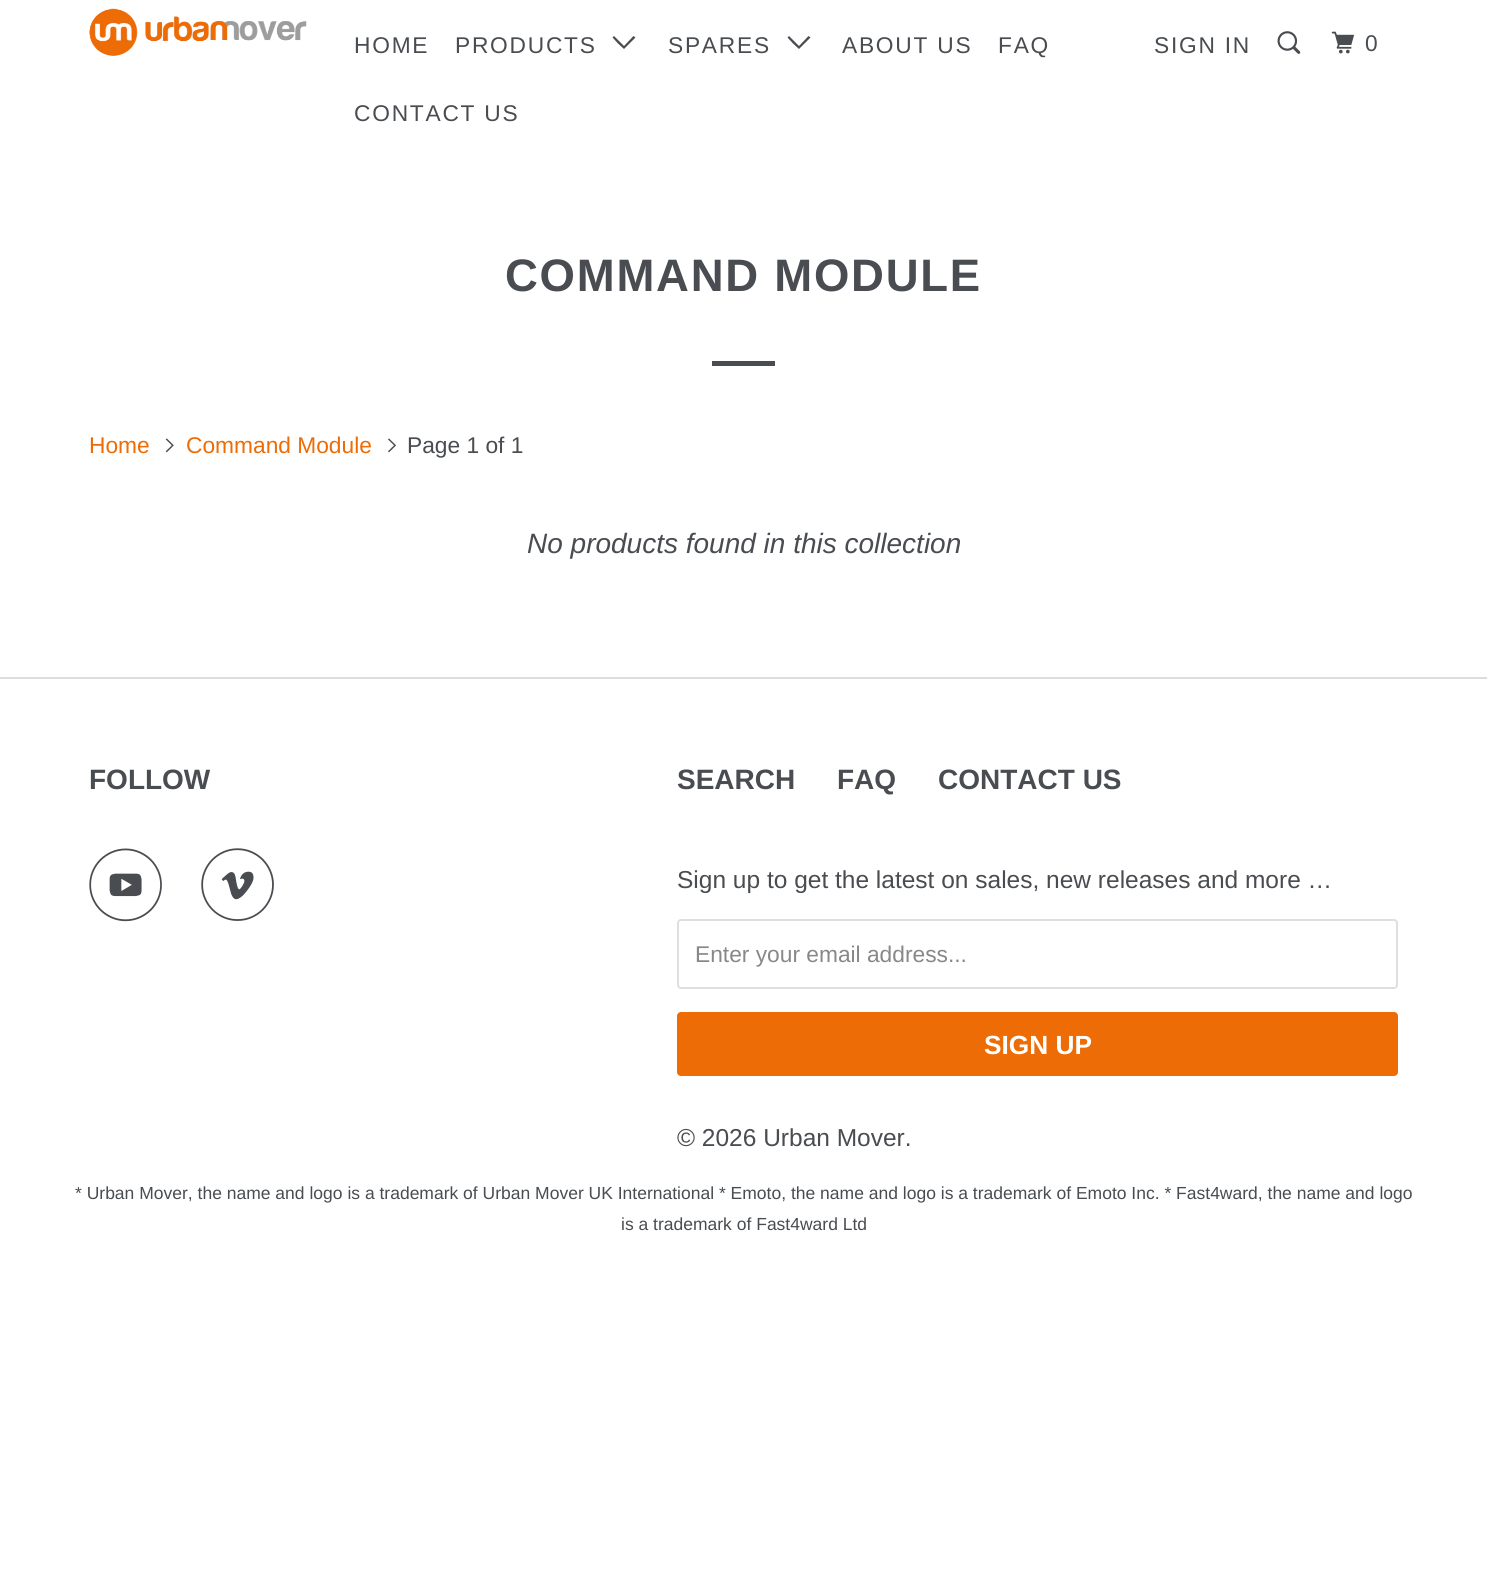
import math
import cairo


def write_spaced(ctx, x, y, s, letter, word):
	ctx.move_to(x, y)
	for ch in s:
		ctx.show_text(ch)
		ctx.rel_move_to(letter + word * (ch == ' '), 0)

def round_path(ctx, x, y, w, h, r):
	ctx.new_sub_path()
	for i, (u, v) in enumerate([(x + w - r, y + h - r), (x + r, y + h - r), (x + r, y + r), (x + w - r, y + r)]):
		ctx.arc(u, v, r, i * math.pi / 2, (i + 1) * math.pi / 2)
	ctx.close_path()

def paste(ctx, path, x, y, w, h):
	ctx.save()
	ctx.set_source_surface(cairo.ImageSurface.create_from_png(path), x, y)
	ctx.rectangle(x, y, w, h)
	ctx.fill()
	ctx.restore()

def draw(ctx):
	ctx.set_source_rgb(1, 1, 1)
	ctx.paint()
	paste(ctx, 'media/1.png', 89, 8, 218, 48)
	ctx.select_font_face('Liberation Sans')
	ctx.set_font_size(22.75)
	ctx.set_source_rgb(0.286, 0.298, 0.314)
	write_spaced(ctx, 354, 53, 'HOME', 1.75, 0)
	write_spaced(ctx, 455, 53, 'PRODUCTS', 1.75, 0)
	ctx.new_path()
	ctx.move_to(618, 43.5)
	ctx.line_to(612.5, 37.5)
	ctx.line_to(614, 36)
	ctx.line_to(624, 46)
	ctx.line_to(633.5, 36)
	ctx.line_to(635.5, 37.5)
	ctx.line_to(624, 49)
	ctx.close_path()
	ctx.fill()
	write_spaced(ctx, 668, 53, 'SPARES', 1.75, 0)
	ctx.new_path()
	ctx.move_to(793, 43.5)
	ctx.line_to(787.5, 37.5)
	ctx.line_to(789, 36)
	ctx.line_to(799, 46)
	ctx.line_to(808.5, 36)
	ctx.line_to(810.5, 37.5)
	ctx.line_to(799, 49)
	ctx.close_path()
	ctx.fill()
	for x, y, s in [
		(842, 53, 'ABOUT US'),
		(998, 53, 'FAQ'),
		(354, 121, 'CONTACT US'),
		(1154, 53, 'SIGN IN'),
	]:
		write_spaced(ctx, x, y, s, 1.75, 0)
	paste(ctx, 'media/2.png', 1277, 31, 24, 23)
	paste(ctx, 'media/3.png', 1331, 31, 23, 23)
	write_spaced(ctx, 1365, 51, '0', 1.75, 0)
	ctx.select_font_face('Liberation Sans', cairo.FONT_SLANT_NORMAL, cairo.FONT_WEIGHT_BOLD)
	ctx.set_font_size(45.5)
	write_spaced(ctx, 505, 291, 'COMMAND MODULE', 1.75, 0)
	ctx.rectangle(712, 361, 63, 5)
	ctx.fill()
	ctx.select_font_face('Liberation Sans')
	ctx.set_font_size(22.75)
	ctx.set_source_rgb(0.929, 0.424, 0.02)
	ctx.move_to(89, 453)
	ctx.show_text('Home')
	paste(ctx, 'media/4.png', 165, 438, 9, 15)
	ctx.move_to(186, 453)
	ctx.show_text('Command Module')
	paste(ctx, 'media/5.png', 388, 438, 8, 15)
	ctx.set_source_rgb(0.286, 0.298, 0.314)
	ctx.move_to(407, 453)
	ctx.show_text('Page 1 of 1')
	ctx.select_font_face('Liberation Sans', cairo.FONT_SLANT_ITALIC)
	ctx.set_font_size(28)
	ctx.move_to(527, 553)
	ctx.show_text('No products found in this collection')
	ctx.set_source_rgb(0.867, 0.867, 0.867)
	ctx.rectangle(0, 677, 1487, 2)
	ctx.fill()
	ctx.select_font_face('Liberation Sans', cairo.FONT_SLANT_NORMAL, cairo.FONT_WEIGHT_BOLD)
	ctx.set_source_rgb(0.286, 0.298, 0.314)
	ctx.move_to(89, 789)
	ctx.show_text('FOLLOW')
	paste(ctx, 'media/6.png', 89, 848, 73, 74)
	paste(ctx, 'media/7.png', 201, 848, 73, 73)
	for x, y, s in [
		(677, 789, 'SEARCH'),
		(837, 789, 'FAQ'),
		(938, 789, 'CONTACT US'),
	]:
		ctx.move_to(x, y)
		ctx.show_text(s)
	ctx.select_font_face('Liberation Sans')
	ctx.set_font_size(24.5)
	ctx.move_to(677, 888)
	ctx.show_text('Sign up to get the latest on sales, new releases and more …')
	round_path(ctx, 678, 920, 719, 68, 3)
	ctx.set_source_rgb(0.875, 0.875, 0.875)
	ctx.stroke()
	ctx.set_font_size(22.75)
	ctx.set_source_rgb(0.533, 0.533, 0.533)
	ctx.move_to(695, 962)
	ctx.show_text('Enter your email address...')
	ctx.set_source_rgb(0.929, 0.424, 0.02)
	round_path(ctx, 677, 1012, 721, 64, 4)
	ctx.fill()
	ctx.select_font_face('Liberation Sans', cairo.FONT_SLANT_NORMAL, cairo.FONT_WEIGHT_BOLD)
	ctx.set_font_size(26.25)
	ctx.set_source_rgb(1, 1, 1)
	ctx.move_to(984, 1054)
	ctx.show_text('SIGN UP')
	ctx.select_font_face('Liberation Sans')
	ctx.set_font_size(24.5)
	ctx.set_source_rgb(0.286, 0.298, 0.314)
	ctx.move_to(677, 1146)
	ctx.show_text('© 2026 Urban Mover.')
	ctx.set_font_size(17.5)
	ctx.move_to(75, 1199)
	ctx.show_text('* Urban Mover, the name and logo is a trademark of Urban Mover UK International * Emoto, the name and logo is a trademark of Emoto Inc. * Fast4ward, the name and logo')
	ctx.move_to(621, 1230)
	ctx.show_text('is a trademark of Fast4ward Ltd')


surface = cairo.ImageSurface(cairo.FORMAT_RGB24, 1487, 1594)
ctx = cairo.Context(surface)
options = cairo.FontOptions()
options.set_hint_metrics(cairo.HINT_METRICS_OFF)
options.set_hint_style(cairo.HINT_STYLE_NONE)
ctx.set_font_options(options)
ctx.set_miter_limit(4)
draw(ctx)
surface.write_to_png('image.png')
